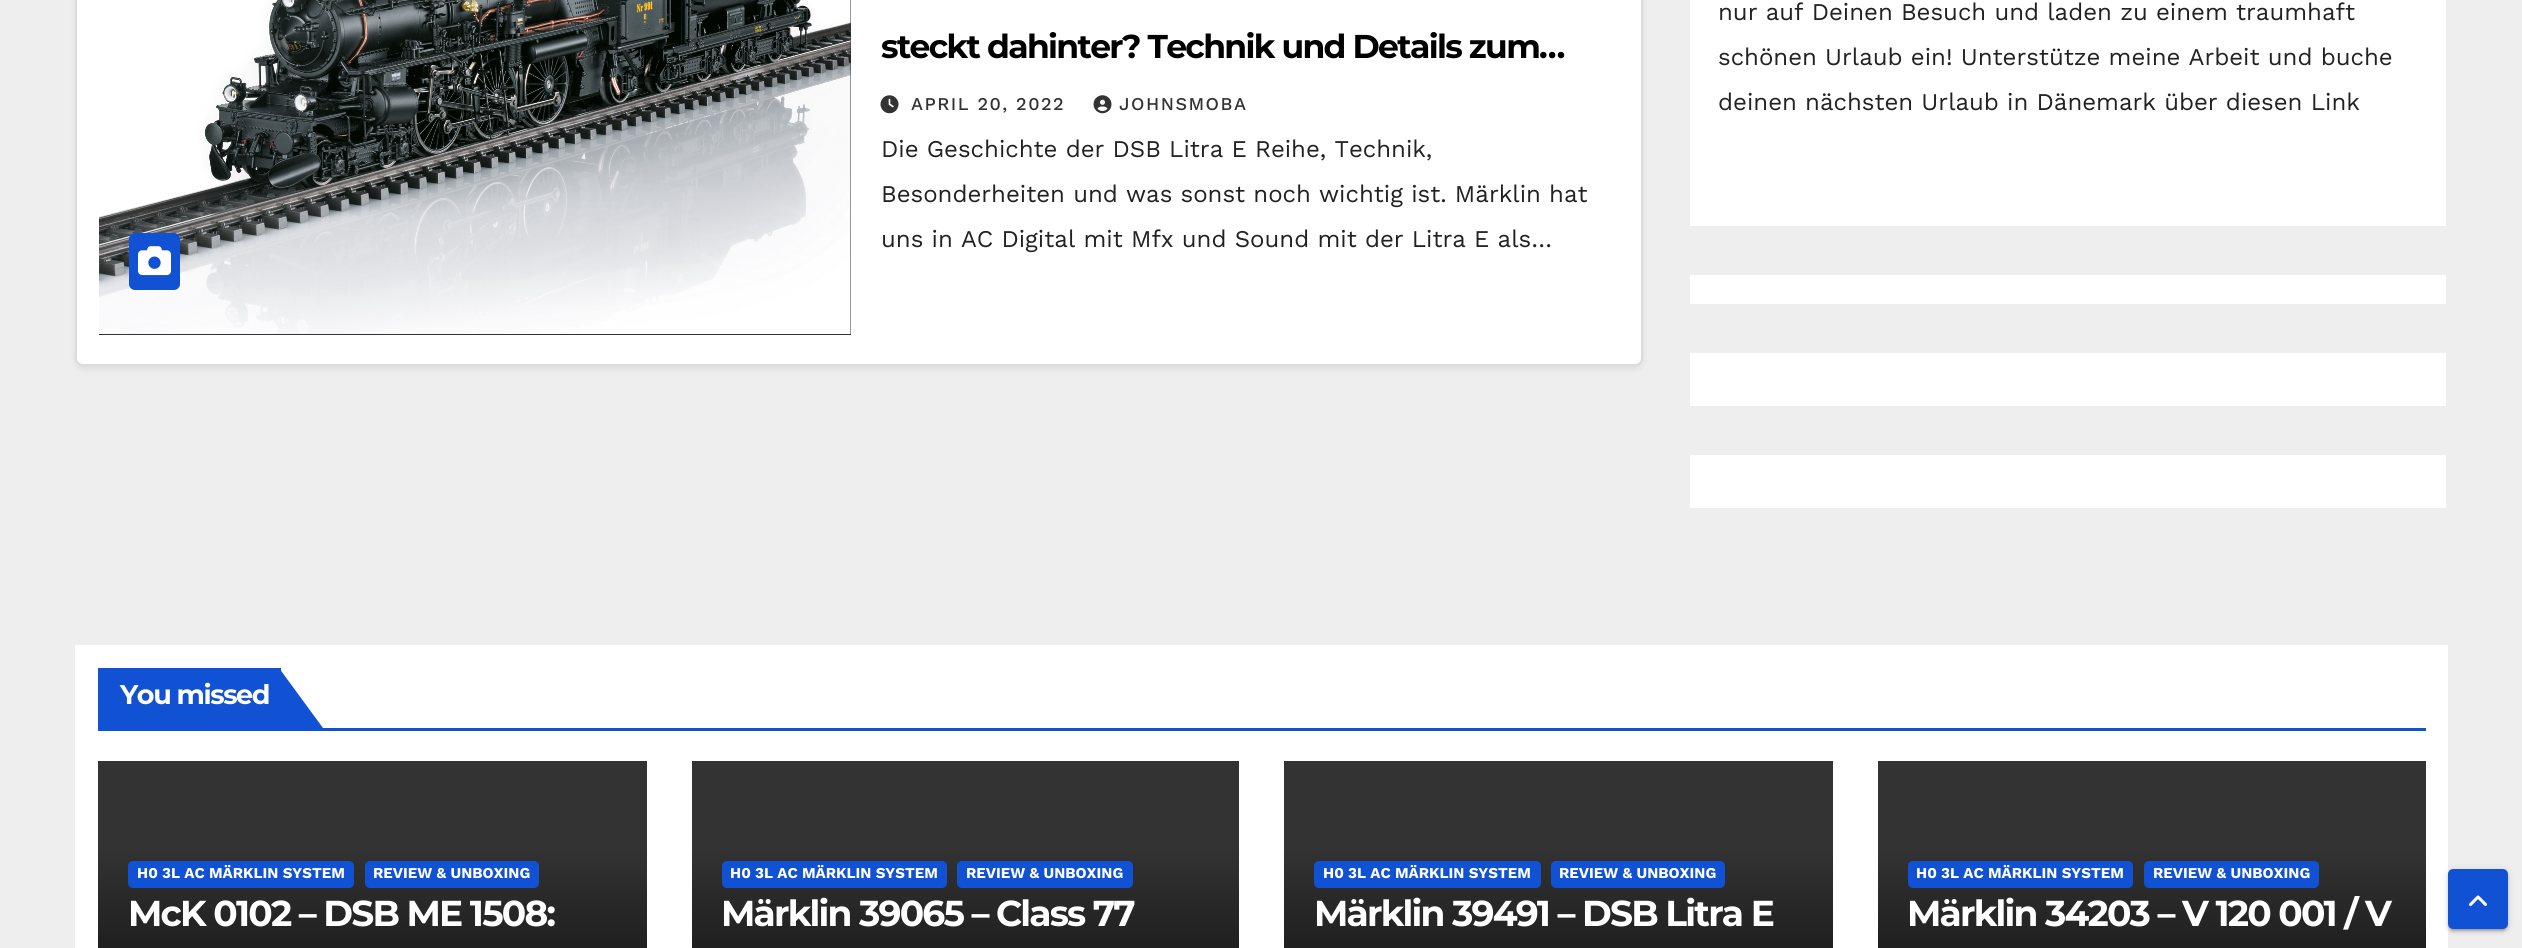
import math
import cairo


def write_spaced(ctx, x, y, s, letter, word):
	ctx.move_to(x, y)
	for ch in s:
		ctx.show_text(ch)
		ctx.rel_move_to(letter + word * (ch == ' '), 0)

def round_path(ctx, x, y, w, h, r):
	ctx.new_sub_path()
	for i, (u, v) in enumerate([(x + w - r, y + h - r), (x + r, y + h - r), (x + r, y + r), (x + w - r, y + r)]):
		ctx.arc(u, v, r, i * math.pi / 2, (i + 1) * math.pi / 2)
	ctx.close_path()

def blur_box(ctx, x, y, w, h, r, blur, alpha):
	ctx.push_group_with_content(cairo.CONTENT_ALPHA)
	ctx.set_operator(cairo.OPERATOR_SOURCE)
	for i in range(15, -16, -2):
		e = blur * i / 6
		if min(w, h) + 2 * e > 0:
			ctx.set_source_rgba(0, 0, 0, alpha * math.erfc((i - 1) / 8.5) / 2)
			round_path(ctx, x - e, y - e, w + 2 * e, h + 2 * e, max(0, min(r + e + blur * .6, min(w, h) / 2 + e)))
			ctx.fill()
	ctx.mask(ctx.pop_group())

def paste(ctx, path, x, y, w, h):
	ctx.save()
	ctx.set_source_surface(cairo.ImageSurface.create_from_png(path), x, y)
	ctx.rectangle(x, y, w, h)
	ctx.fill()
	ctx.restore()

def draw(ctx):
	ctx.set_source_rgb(0.933, 0.933, 0.933)
	ctx.paint()
	ctx.set_source_rgb(0, 0, 0)
	blur_box(ctx, 75, -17, 1568, 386, 8, 3, 0.08)
	ctx.set_source_rgb(1, 1, 1)
	round_path(ctx, 76, -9, 1566, 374, 7)
	ctx.fill_preserve()
	ctx.set_source_rgb(0.867, 0.863, 0.863)
	ctx.stroke()
	ctx.set_source_rgb(0.2, 0.2, 0.2)
	ctx.rectangle(99, 0, 752, 335)
	ctx.fill()
	paste(ctx, 'media/1.png', 99, 0, 752, 334)
	ctx.set_source_rgb(0.067, 0.318, 0.827)
	round_path(ctx, 129, 233, 51, 57, 6)
	ctx.fill()
	paste(ctx, 'media/2.png', 138, 246, 33, 30)
	ctx.select_font_face('Montserrat', cairo.FONT_SLANT_NORMAL, cairo.FONT_WEIGHT_BOLD)
	ctx.set_font_size(33)
	ctx.set_source_rgb(0, 0, 0)
	write_spaced(ctx, 881, 58, 'steckt dahinter? Technik und Details zum…', -1.65, 0)
	paste(ctx, 'media/3.png', 880, 95, 19, 19)
	ctx.select_font_face('Work Sans Medium')
	ctx.set_font_size(18)
	ctx.set_source_rgb(0.2, 0.2, 0.2)
	write_spaced(ctx, 911, 110, 'APRIL 20, 2022', 1.5, 0)
	paste(ctx, 'media/4.png', 1093, 95, 19, 19)
	write_spaced(ctx, 1119, 110, 'JOHNSMOBA', 1.5, 0)
	ctx.select_font_face('Work Sans')
	ctx.set_font_size(24)
	ctx.set_source_rgb(0.133, 0.133, 0.133)
	for x, y, s in [
		(881, 157, 'Die Geschichte der DSB Litra E Reihe, Technik,'),
		(881, 202, 'Besonderheiten und was sonst noch wichtig ist. Märklin hat'),
		(881, 247, 'uns in AC Digital mit Mfx und Sound mit der Litra E als…'),
	]:
		ctx.move_to(x, y)
		ctx.show_text(s)
	ctx.set_source_rgb(1, 1, 1)
	ctx.rectangle(1690, 0, 756, 226)
	ctx.fill()
	ctx.set_source_rgb(0.133, 0.133, 0.133)
	for x, y, s in [
		(1718, 20, 'nur auf Deinen Besuch und laden zu einem traumhaft'),
		(1718, 65, 'schönen Urlaub ein! Unterstütze meine Arbeit und buche'),
		(1718, 110, 'deinen nächsten Urlaub in Dänemark über diesen Link'),
	]:
		ctx.move_to(x, y)
		ctx.show_text(s)
	ctx.set_source_rgb(1, 1, 1)
	ctx.rectangle(1690, 275, 756, 29)
	ctx.rectangle(1690, 353, 756, 53)
	ctx.rectangle(1690, 455, 756, 53)
	ctx.rectangle(75, 645, 2373, 303)
	ctx.fill()
	ctx.set_source_rgb(0.067, 0.318, 0.827)
	ctx.rectangle(98, 728, 2328, 3)
	ctx.rectangle(98, 668, 183, 60)
	ctx.fill()
	ctx.select_font_face('Montserrat', cairo.FONT_SLANT_NORMAL, cairo.FONT_WEIGHT_BOLD)
	ctx.set_font_size(27)
	ctx.set_source_rgb(1, 1, 1)
	write_spaced(ctx, 120, 704, 'You missed', -1.4, 0)
	ctx.set_source_rgb(0.067, 0.318, 0.827)
	ctx.new_path()
	ctx.move_to(279, 668)
	ctx.line_to(279, 728)
	ctx.line_to(323, 728)
	ctx.close_path()
	ctx.fill()
	ctx.set_source_rgb(0.2, 0.2, 0.2)
	ctx.rectangle(98, 761, 549, 85)
	ctx.fill()
	gradient = cairo.LinearGradient(372, 846, 372, 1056)
	gradient.add_color_stop_rgba(0, 0.2, 0.2, 0.2, 1)
	gradient.add_color_stop_rgba(0.5, 0.122, 0.122, 0.122, 1)
	gradient.add_color_stop_rgba(1, 0.059, 0.059, 0.059, 1)
	ctx.set_source(gradient)
	ctx.rectangle(98, 846, 549, 102)
	ctx.fill()
	ctx.set_source_rgb(0.067, 0.318, 0.827)
	round_path(ctx, 128, 861, 226, 27, 5)
	ctx.fill()
	ctx.select_font_face('Work Sans', cairo.FONT_SLANT_NORMAL, cairo.FONT_WEIGHT_BOLD)
	ctx.set_font_size(15)
	ctx.set_source_rgb(1, 1, 1)
	ctx.move_to(137, 878)
	ctx.show_text('H0 3L AC MÄRKLIN SYSTEM')
	ctx.set_source_rgb(0.067, 0.318, 0.827)
	round_path(ctx, 365, 861, 174, 27, 5)
	ctx.fill()
	ctx.set_source_rgb(1, 1, 1)
	ctx.move_to(373, 878)
	ctx.show_text('REVIEW & UNBOXING')
	ctx.select_font_face('Montserrat', cairo.FONT_SLANT_NORMAL, cairo.FONT_WEIGHT_BOLD)
	ctx.set_font_size(36)
	write_spaced(ctx, 128, 926, 'McK 0102 – DSB ME 1508:', -1.8, 0)
	ctx.set_source_rgb(0.2, 0.2, 0.2)
	ctx.rectangle(692, 761, 547, 85)
	ctx.fill()
	gradient = cairo.LinearGradient(965, 846, 965, 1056)
	gradient.add_color_stop_rgba(0, 0.2, 0.2, 0.2, 1)
	gradient.add_color_stop_rgba(0.5, 0.122, 0.122, 0.122, 1)
	gradient.add_color_stop_rgba(1, 0.059, 0.059, 0.059, 1)
	ctx.set_source(gradient)
	ctx.rectangle(692, 846, 547, 102)
	ctx.fill()
	ctx.set_source_rgb(0.067, 0.318, 0.827)
	round_path(ctx, 722, 861, 225, 27, 5)
	ctx.fill()
	ctx.select_font_face('Work Sans', cairo.FONT_SLANT_NORMAL, cairo.FONT_WEIGHT_BOLD)
	ctx.set_font_size(15)
	ctx.set_source_rgb(1, 1, 1)
	ctx.move_to(730, 878)
	ctx.show_text('H0 3L AC MÄRKLIN SYSTEM')
	ctx.set_source_rgb(0.067, 0.318, 0.827)
	round_path(ctx, 957, 861, 176, 27, 5)
	ctx.fill()
	ctx.set_source_rgb(1, 1, 1)
	ctx.move_to(966, 878)
	ctx.show_text('REVIEW & UNBOXING')
	ctx.select_font_face('Montserrat', cairo.FONT_SLANT_NORMAL, cairo.FONT_WEIGHT_BOLD)
	ctx.set_font_size(36)
	write_spaced(ctx, 721, 926, 'Märklin 39065 – Class 77', -1.8, 0)
	ctx.set_source_rgb(0.2, 0.2, 0.2)
	ctx.rectangle(1284, 761, 549, 85)
	ctx.fill()
	gradient = cairo.LinearGradient(1559, 846, 1559, 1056)
	gradient.add_color_stop_rgba(0, 0.2, 0.2, 0.2, 1)
	gradient.add_color_stop_rgba(0.5, 0.122, 0.122, 0.122, 1)
	gradient.add_color_stop_rgba(1, 0.059, 0.059, 0.059, 1)
	ctx.set_source(gradient)
	ctx.rectangle(1284, 846, 549, 102)
	ctx.fill()
	ctx.set_source_rgb(0.067, 0.318, 0.827)
	round_path(ctx, 1314, 861, 227, 27, 5)
	ctx.fill()
	ctx.select_font_face('Work Sans', cairo.FONT_SLANT_NORMAL, cairo.FONT_WEIGHT_BOLD)
	ctx.set_font_size(15)
	ctx.set_source_rgb(1, 1, 1)
	ctx.move_to(1323, 878)
	ctx.show_text('H0 3L AC MÄRKLIN SYSTEM')
	ctx.set_source_rgb(0.067, 0.318, 0.827)
	round_path(ctx, 1551, 861, 174, 27, 5)
	ctx.fill()
	ctx.set_source_rgb(1, 1, 1)
	ctx.move_to(1559, 878)
	ctx.show_text('REVIEW & UNBOXING')
	ctx.select_font_face('Montserrat', cairo.FONT_SLANT_NORMAL, cairo.FONT_WEIGHT_BOLD)
	ctx.set_font_size(36)
	write_spaced(ctx, 1314, 926, 'Märklin 39491 – DSB Litra E', -1.8, 0)
	ctx.set_source_rgb(0.2, 0.2, 0.2)
	ctx.rectangle(1878, 761, 548, 85)
	ctx.fill()
	gradient = cairo.LinearGradient(2152, 846, 2152, 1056)
	gradient.add_color_stop_rgba(0, 0.2, 0.2, 0.2, 1)
	gradient.add_color_stop_rgba(0.5, 0.122, 0.122, 0.122, 1)
	gradient.add_color_stop_rgba(1, 0.059, 0.059, 0.059, 1)
	ctx.set_source(gradient)
	ctx.rectangle(1878, 846, 548, 102)
	ctx.fill()
	ctx.set_source_rgb(0.067, 0.318, 0.827)
	round_path(ctx, 1908, 861, 225, 27, 5)
	ctx.fill()
	ctx.select_font_face('Work Sans', cairo.FONT_SLANT_NORMAL, cairo.FONT_WEIGHT_BOLD)
	ctx.set_font_size(15)
	ctx.set_source_rgb(1, 1, 1)
	ctx.move_to(1916, 878)
	ctx.show_text('H0 3L AC MÄRKLIN SYSTEM')
	ctx.set_source_rgb(0.067, 0.318, 0.827)
	round_path(ctx, 2144, 861, 175, 27, 5)
	ctx.fill()
	ctx.set_source_rgb(1, 1, 1)
	ctx.move_to(2153, 878)
	ctx.show_text('REVIEW & UNBOXING')
	ctx.save()
	ctx.rectangle(1908, 896, 488, 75)
	ctx.clip()
	ctx.select_font_face('Montserrat', cairo.FONT_SLANT_NORMAL, cairo.FONT_WEIGHT_BOLD)
	ctx.set_font_size(36)
	write_spaced(ctx, 1907, 926, 'Märklin 34203 – V 120 001 / V', -1.8, 0)
	ctx.restore()
	ctx.set_source_rgb(0, 0, 0)
	blur_box(ctx, 2448, 870, 60, 60, 5, 4, 0.12)
	blur_box(ctx, 2451, 876, 54, 54, 1.5, 1, 0.2)
	blur_box(ctx, 2448, 872, 60, 60, 5, 1.5, 0.14)
	ctx.set_source_rgb(0.067, 0.318, 0.827)
	round_path(ctx, 2449.5, 870.5, 57, 57, 3.5)
	ctx.fill_preserve()
	ctx.set_line_width(3)
	ctx.stroke()
	paste(ctx, 'media/5.png', 2469, 895, 18, 11)


surface = cairo.ImageSurface(cairo.FORMAT_RGB24, 2522, 948)
ctx = cairo.Context(surface)
options = cairo.FontOptions()
options.set_hint_metrics(cairo.HINT_METRICS_OFF)
options.set_hint_style(cairo.HINT_STYLE_NONE)
ctx.set_font_options(options)
ctx.set_miter_limit(4)
draw(ctx)
surface.write_to_png('image.png')
